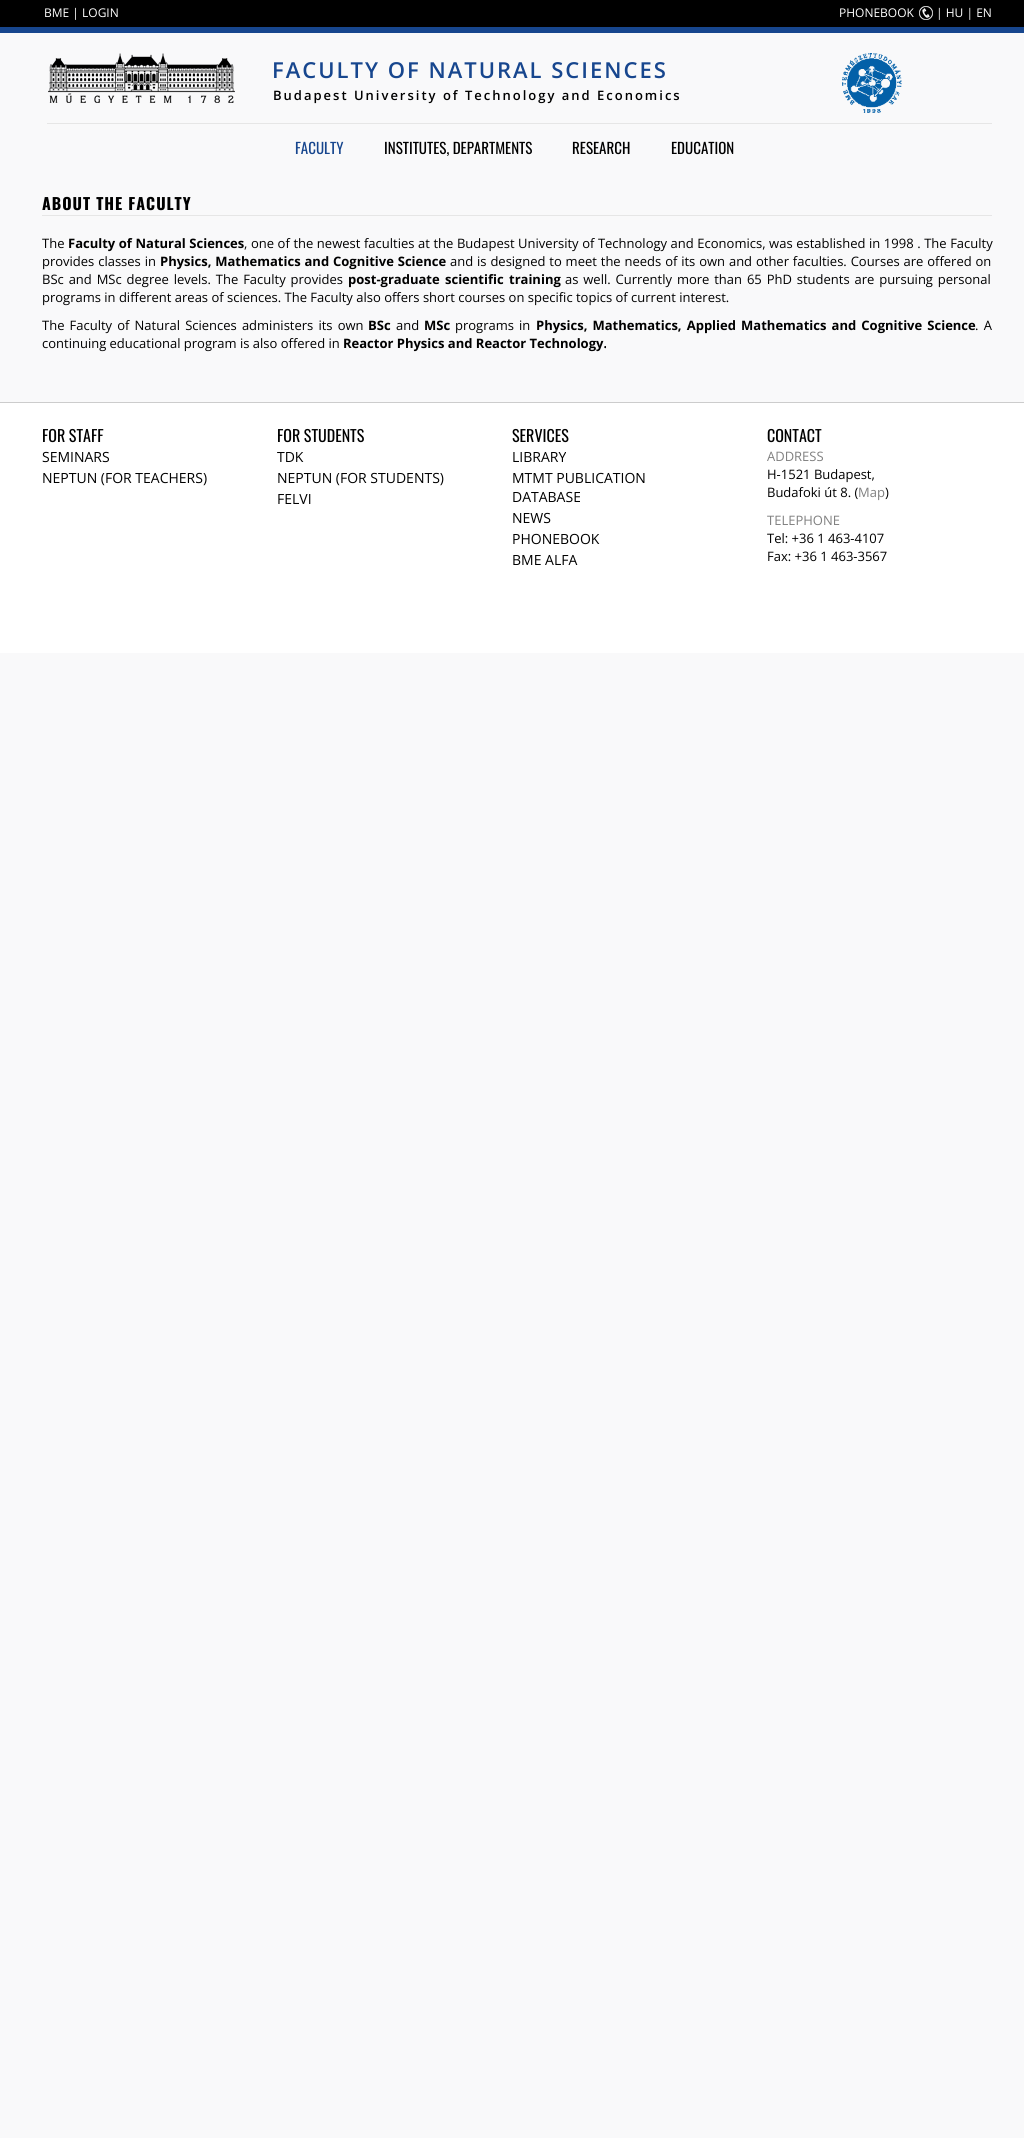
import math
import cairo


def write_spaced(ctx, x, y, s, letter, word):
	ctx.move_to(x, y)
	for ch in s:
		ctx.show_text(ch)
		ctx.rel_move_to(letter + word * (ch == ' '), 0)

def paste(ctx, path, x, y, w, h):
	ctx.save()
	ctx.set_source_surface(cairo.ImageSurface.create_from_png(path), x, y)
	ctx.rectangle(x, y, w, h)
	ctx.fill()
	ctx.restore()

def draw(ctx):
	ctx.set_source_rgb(0.976, 0.976, 0.98)
	ctx.paint()
	ctx.set_source_rgb(0, 0, 0)
	ctx.rectangle(0, 0, 1024, 27)
	ctx.fill()
	ctx.select_font_face('Open Sans')
	ctx.set_font_size(12)
	ctx.set_source_rgb(1, 1, 1)
	ctx.move_to(44, 17)
	ctx.show_text('BME | LOGIN')
	ctx.move_to(839, 17)
	ctx.show_text('PHONEBOOK')
	paste(ctx, 'media/1.png', 919, 6, 14, 14)
	ctx.move_to(936, 17)
	ctx.show_text('| HU | EN')
	ctx.set_source_rgb(0.09, 0.275, 0.557)
	ctx.rectangle(0, 27, 1024, 6)
	ctx.fill()
	paste(ctx, 'media/2.png', 48, 53, 187, 50)
	ctx.select_font_face('Open Sans SemiBold')
	ctx.set_font_size(22)
	write_spaced(ctx, 272, 78, 'FACULTY OF NATURAL SCIENCES', 2, 0)
	ctx.set_font_size(13)
	ctx.set_source_rgb(0, 0, 0)
	write_spaced(ctx, 273, 100, 'Budapest University of Technology and Economics', 2, 0)
	paste(ctx, 'media/3.png', 842, 53, 60, 60)
	ctx.set_source_rgb(0.902, 0.902, 0.902)
	ctx.rectangle(47, 123, 945, 1)
	ctx.fill()
	ctx.select_font_face('Oswald')
	ctx.set_font_size(15)
	ctx.set_source_rgb(0.09, 0.275, 0.557)
	ctx.move_to(295, 154)
	ctx.show_text('FACULTY')
	ctx.set_source_rgb(0, 0, 0)
	for x, y, s in [
		(384, 154, 'INSTITUTES, DEPARTMENTS'),
		(572, 154, 'RESEARCH'),
		(671, 154, 'EDUCATION'),
	]:
		ctx.move_to(x, y)
		ctx.show_text(s)
	ctx.select_font_face('Oswald', cairo.FONT_SLANT_NORMAL, cairo.FONT_WEIGHT_BOLD)
	ctx.set_font_size(16)
	write_spaced(ctx, 42, 210, 'ABOUT THE FACULTY', 1, 0)
	ctx.set_source_rgb(0.902, 0.902, 0.902)
	ctx.rectangle(42, 215, 950, 1)
	ctx.fill()
	ctx.select_font_face('Open Sans')
	ctx.set_font_size(13)
	ctx.set_source_rgb(0, 0, 0)
	ctx.move_to(42, 248)
	ctx.show_text('The')
	ctx.select_font_face('Open Sans', cairo.FONT_SLANT_NORMAL, cairo.FONT_WEIGHT_BOLD)
	write_spaced(ctx, 68, 248, 'Faculty of Natural Sciences', 0, 0.2)
	ctx.select_font_face('Open Sans')
	write_spaced(ctx, 244, 248, ', one of the newest faculties at the Budapest University of Technology and Economics, was established in 1998 . The Faculty', 0, 0.2)
	write_spaced(ctx, 42, 266, 'provides classes in', 0, 0.5)
	ctx.select_font_face('Open Sans', cairo.FONT_SLANT_NORMAL, cairo.FONT_WEIGHT_BOLD)
	write_spaced(ctx, 160, 266, 'Physics, Mathematics and Cognitive Science', 0, 0.5)
	ctx.select_font_face('Open Sans')
	write_spaced(ctx, 450, 266, 'and is designed to meet the needs of its own and other faculties. Courses are offered on', 0, 0.5)
	write_spaced(ctx, 42, 284, 'BSc and MSc degree levels. The Faculty provides', 0, 1.5)
	ctx.select_font_face('Open Sans', cairo.FONT_SLANT_NORMAL, cairo.FONT_WEIGHT_BOLD)
	write_spaced(ctx, 348, 284, 'post-graduate scientific training', 0, 2)
	ctx.select_font_face('Open Sans')
	write_spaced(ctx, 565, 284, 'as well. Currently more than 65 PhD students are pursuing personal', 0, 1.5)
	ctx.move_to(42, 302)
	ctx.show_text('programs in different areas of sciences. The Faculty also offers short courses on specific topics of current interest.')
	write_spaced(ctx, 42, 330, 'The Faculty of Natural Sciences administers its own', 0, 1.75)
	ctx.select_font_face('Open Sans', cairo.FONT_SLANT_NORMAL, cairo.FONT_WEIGHT_BOLD)
	ctx.move_to(368, 330)
	ctx.show_text('BSc')
	ctx.select_font_face('Open Sans')
	ctx.move_to(396, 330)
	ctx.show_text('and')
	ctx.select_font_face('Open Sans', cairo.FONT_SLANT_NORMAL, cairo.FONT_WEIGHT_BOLD)
	ctx.move_to(424, 330)
	ctx.show_text('MSc')
	ctx.select_font_face('Open Sans')
	write_spaced(ctx, 455, 330, 'programs in', 0, 1.75)
	ctx.select_font_face('Open Sans', cairo.FONT_SLANT_NORMAL, cairo.FONT_WEIGHT_BOLD)
	write_spaced(ctx, 536, 330, 'Physics, Mathematics, Applied Mathematics and Cognitive Science', 0, 1.75)
	ctx.select_font_face('Open Sans')
	write_spaced(ctx, 975, 330, '. A', 0, 2)
	ctx.move_to(42, 348)
	ctx.show_text('continuing educational program is also offered in')
	ctx.select_font_face('Open Sans', cairo.FONT_SLANT_NORMAL, cairo.FONT_WEIGHT_BOLD)
	ctx.move_to(343, 348)
	ctx.show_text('Reactor Physics and Reactor Technology.')
	ctx.set_source_rgb(1, 1, 1)
	ctx.rectangle(0, 403, 1024, 250)
	ctx.fill()
	ctx.set_source_rgb(0.8, 0.8, 0.8)
	ctx.rectangle(0, 402, 1024, 1)
	ctx.fill()
	ctx.select_font_face('Oswald')
	ctx.set_font_size(16)
	ctx.set_source_rgb(0, 0, 0)
	ctx.move_to(42, 442)
	ctx.show_text('FOR STAFF')
	ctx.select_font_face('Open Sans')
	ctx.set_font_size(14)
	ctx.move_to(42, 462)
	ctx.show_text('SEMINARS')
	ctx.move_to(42, 483)
	ctx.show_text('NEPTUN (FOR TEACHERS)')
	ctx.select_font_face('Oswald')
	ctx.set_font_size(16)
	ctx.move_to(277, 442)
	ctx.show_text('FOR STUDENTS')
	ctx.select_font_face('Open Sans')
	ctx.set_font_size(14)
	for x, y, s in [
		(277, 462, 'TDK'),
		(277, 483, 'NEPTUN (FOR STUDENTS)'),
		(277, 504, 'FELVI'),
	]:
		ctx.move_to(x, y)
		ctx.show_text(s)
	ctx.select_font_face('Oswald')
	ctx.set_font_size(16)
	ctx.move_to(512, 442)
	ctx.show_text('SERVICES')
	ctx.select_font_face('Open Sans')
	ctx.set_font_size(14)
	for x, y, s in [
		(512, 462, 'LIBRARY'),
		(512, 483, 'MTMT PUBLICATION'),
		(512, 502, 'DATABASE'),
		(512, 523, 'NEWS'),
		(512, 544, 'PHONEBOOK'),
		(512, 565, 'BME ALFA'),
	]:
		ctx.move_to(x, y)
		ctx.show_text(s)
	ctx.select_font_face('Oswald')
	ctx.set_font_size(16)
	ctx.move_to(767, 442)
	ctx.show_text('CONTACT')
	ctx.select_font_face('Open Sans')
	ctx.set_font_size(13)
	ctx.set_source_rgb(0.502, 0.502, 0.502)
	ctx.move_to(767, 461)
	ctx.show_text('ADDRESS')
	ctx.set_source_rgb(0, 0, 0)
	ctx.move_to(767, 479)
	ctx.show_text('H-1521 Budapest,')
	ctx.move_to(767, 497)
	ctx.show_text('Budafoki út 8. (')
	ctx.set_source_rgb(0.502, 0.502, 0.502)
	ctx.move_to(858, 497)
	ctx.show_text('Map')
	ctx.set_source_rgb(0, 0, 0)
	ctx.move_to(885, 497)
	ctx.show_text(')')
	ctx.set_source_rgb(0.502, 0.502, 0.502)
	ctx.move_to(767, 525)
	ctx.show_text('TELEPHONE')
	ctx.set_source_rgb(0, 0, 0)
	ctx.move_to(767, 543)
	ctx.show_text('Tel: +36 1 463-4107')
	ctx.move_to(767, 561)
	ctx.show_text('Fax: +36 1 463-3567')


surface = cairo.ImageSurface(cairo.FORMAT_RGB24, 1024, 2138)
ctx = cairo.Context(surface)
options = cairo.FontOptions()
options.set_hint_metrics(cairo.HINT_METRICS_OFF)
options.set_hint_style(cairo.HINT_STYLE_NONE)
ctx.set_font_options(options)
ctx.set_miter_limit(4)
draw(ctx)
surface.write_to_png('image.png')
